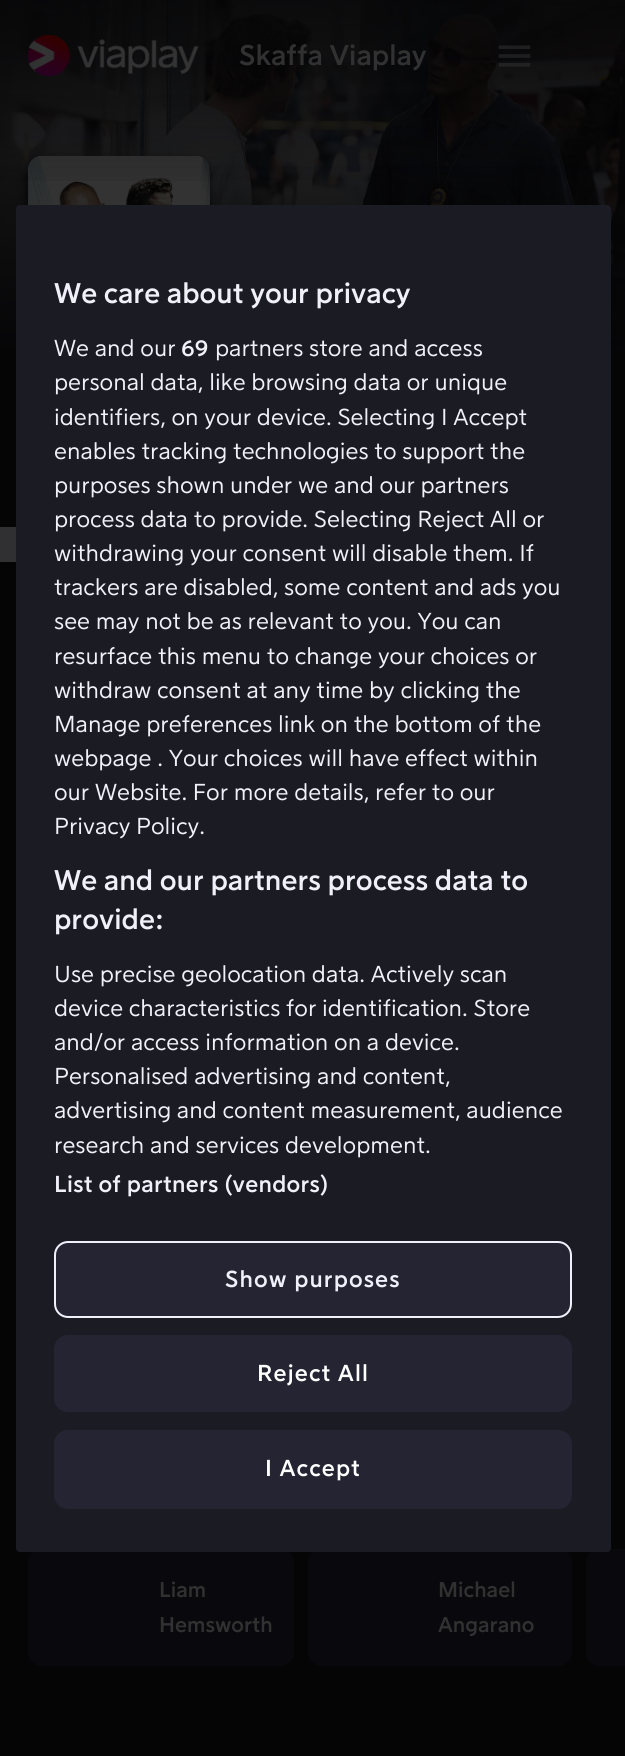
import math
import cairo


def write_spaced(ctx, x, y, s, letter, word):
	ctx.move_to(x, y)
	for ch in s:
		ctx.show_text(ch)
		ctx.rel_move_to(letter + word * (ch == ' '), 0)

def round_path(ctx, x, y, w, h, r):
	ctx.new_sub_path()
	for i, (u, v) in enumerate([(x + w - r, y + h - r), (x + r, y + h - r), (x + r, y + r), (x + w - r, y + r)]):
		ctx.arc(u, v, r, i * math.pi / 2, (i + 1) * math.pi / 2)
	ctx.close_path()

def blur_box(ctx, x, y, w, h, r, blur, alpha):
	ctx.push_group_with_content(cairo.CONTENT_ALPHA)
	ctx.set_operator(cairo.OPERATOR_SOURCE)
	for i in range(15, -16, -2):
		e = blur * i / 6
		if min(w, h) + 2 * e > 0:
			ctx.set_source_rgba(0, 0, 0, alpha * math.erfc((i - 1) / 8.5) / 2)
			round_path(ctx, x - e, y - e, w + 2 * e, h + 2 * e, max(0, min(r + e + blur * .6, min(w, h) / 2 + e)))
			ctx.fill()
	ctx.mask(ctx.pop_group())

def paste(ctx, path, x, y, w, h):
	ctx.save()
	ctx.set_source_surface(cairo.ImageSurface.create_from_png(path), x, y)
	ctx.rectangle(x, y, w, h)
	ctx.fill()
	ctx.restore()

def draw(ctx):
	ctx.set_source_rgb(0.02, 0.02, 0.027)
	ctx.paint()
	paste(ctx, 'media/3.png', 0, 0, 625, 350)
	ctx.set_source_rgb(0, 0, 0)
	blur_box(ctx, 28, 159, 182, 272, 14, 3.5, 0.68)
	paste(ctx, 'media/4.png', 28, 155, 182, 50)
	gradient = cairo.LinearGradient(313, 0, 313, 217)
	gradient.add_color_stop_rgba(0, 0.02, 0.02, 0.027, 0.8)
	gradient.add_color_stop_rgba(0.2, 0.02, 0.02, 0.027, 0.73)
	gradient.add_color_stop_rgba(0.33, 0.02, 0.02, 0.027, 0.62)
	gradient.add_color_stop_rgba(0.47, 0.02, 0.02, 0.027, 0.45)
	gradient.add_color_stop_rgba(0.6, 0.02, 0.02, 0.027, 0.27)
	gradient.add_color_stop_rgba(0.73, 0.02, 0.02, 0.027, 0.12)
	gradient.add_color_stop_rgba(0.87, 0.02, 0.02, 0.027, 0.03)
	gradient.add_color_stop_rgba(1, 0.02, 0.02, 0.027, 0)
	ctx.set_source(gradient)
	ctx.rectangle(0, 0, 625, 181)
	ctx.fill()
	paste(ctx, 'media/1.png', 28, 35, 171, 42)
	ctx.select_font_face('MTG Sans', cairo.FONT_SLANT_NORMAL, cairo.FONT_WEIGHT_BOLD)
	ctx.set_font_size(28)
	ctx.set_source_rgb(0.192, 0.192, 0.192)
	ctx.move_to(239, 65)
	ctx.show_text('Skaffa Viaplay')
	paste(ctx, 'media/2.png', 498, 45, 33, 22)
	ctx.set_source_rgb(0.188, 0.188, 0.196)
	ctx.rectangle(0, 527, 16, 35)
	ctx.fill()
	ctx.set_source_rgb(0.039, 0.035, 0.047)
	round_path(ctx, 28, 1549, 266, 117, 14)
	ctx.fill()
	ctx.set_font_size(21)
	ctx.set_source_rgb(0.192, 0.192, 0.192)
	ctx.move_to(159, 1597)
	ctx.show_text('Liam')
	ctx.move_to(159, 1632)
	ctx.show_text('Hemsworth')
	ctx.set_source_rgb(0.039, 0.035, 0.047)
	round_path(ctx, 308, 1549, 264, 117, 14)
	ctx.fill()
	ctx.set_source_rgb(0.192, 0.192, 0.192)
	ctx.move_to(438, 1597)
	ctx.show_text('Michael')
	ctx.move_to(438, 1632)
	ctx.show_text('Angarano')
	ctx.set_source_rgb(0.039, 0.035, 0.047)
	ctx.new_path()
	ctx.move_to(600, 1549)
	ctx.line_to(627, 1549)
	ctx.line_to(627, 1666)
	ctx.line_to(600, 1666)
	ctx.curve_to(592.5, 1666, 586, 1659.5, 586, 1652)
	ctx.line_to(586, 1563)
	ctx.curve_to(586, 1555.5, 592.5, 1549, 600, 1549)
	ctx.close_path()
	ctx.fill()
	ctx.set_source_rgb(0.106, 0.106, 0.141)
	round_path(ctx, 16, 205, 595, 1347, 4)
	ctx.fill()
	ctx.set_font_size(28)
	ctx.set_source_rgb(0.945, 0.941, 0.98)
	ctx.move_to(54, 303)
	ctx.show_text('We care about your privacy')
	ctx.select_font_face('MTG Sans')
	ctx.set_font_size(22.75)
	ctx.move_to(54, 356)
	ctx.show_text('We and our')
	ctx.select_font_face('MTG Sans', cairo.FONT_SLANT_NORMAL, cairo.FONT_WEIGHT_BOLD)
	ctx.move_to(181, 356)
	ctx.show_text('69')
	ctx.select_font_face('MTG Sans')
	for x, y, s in [
		(215, 356, 'partners store and access'),
		(54, 390, 'personal data, like browsing data or unique'),
		(54, 425, 'identifiers, on your device. Selecting I Accept'),
		(54, 459, 'enables tracking technologies to support the'),
		(54, 493, 'purposes shown under we and our partners'),
		(54, 527, 'process data to provide. Selecting Reject All or'),
		(54, 561, 'withdrawing your consent will disable them. If'),
		(54, 595, 'trackers are disabled, some content and ads you'),
		(54, 629, 'see may not be as relevant to you. You can'),
		(54, 664, 'resurface this menu to change your choices or'),
		(54, 698, 'withdraw consent at any time by clicking the'),
		(54, 732, 'Manage preferences link on the bottom of the'),
		(54, 766, 'webpage . Your choices will have effect within'),
		(54, 800, 'our Website. For more details, refer to our'),
		(54, 834, 'Privacy Policy.'),
	]:
		ctx.move_to(x, y)
		ctx.show_text(s)
	ctx.select_font_face('MTG Sans', cairo.FONT_SLANT_NORMAL, cairo.FONT_WEIGHT_BOLD)
	ctx.set_font_size(28)
	ctx.move_to(54, 890)
	ctx.show_text('We and our partners process data to')
	ctx.move_to(54, 929)
	ctx.show_text('provide:')
	ctx.select_font_face('MTG Sans')
	ctx.set_font_size(22.75)
	for x, y, s in [
		(54, 982, 'Use precise geolocation data. Actively scan'),
		(54, 1016, 'device characteristics for identification. Store'),
		(54, 1050, 'and/or access information on a device.'),
		(54, 1084, 'Personalised advertising and content,'),
		(54, 1118, 'advertising and content measurement, audience'),
		(54, 1153, 'research and services development.'),
	]:
		ctx.move_to(x, y)
		ctx.show_text(s)
	ctx.select_font_face('MTG Sans', cairo.FONT_SLANT_NORMAL, cairo.FONT_WEIGHT_BOLD)
	write_spaced(ctx, 54, 1192, 'List of partners (vendors)', 0.25, 0)
	ctx.set_source_rgb(0.145, 0.141, 0.2)
	round_path(ctx, 55, 1242, 516, 75, 13)
	ctx.fill_preserve()
	ctx.set_source_rgb(0.945, 0.941, 0.98)
	ctx.stroke()
	write_spaced(ctx, 225, 1287, 'Show purposes', 1.1, 0)
	ctx.set_source_rgb(0.145, 0.141, 0.2)
	round_path(ctx, 55, 1336, 516, 75, 13)
	ctx.fill_preserve()
	ctx.stroke()
	ctx.set_source_rgb(1, 1, 1)
	write_spaced(ctx, 257, 1381, 'Reject All', 1.1, 0)
	ctx.set_source_rgb(0.145, 0.141, 0.2)
	round_path(ctx, 55, 1431, 516, 77, 13)
	ctx.fill_preserve()
	ctx.stroke()
	ctx.set_source_rgb(1, 1, 1)
	write_spaced(ctx, 265, 1476, 'I Accept', 1.1, 0)


surface = cairo.ImageSurface(cairo.FORMAT_RGB24, 625, 1756)
ctx = cairo.Context(surface)
options = cairo.FontOptions()
options.set_hint_metrics(cairo.HINT_METRICS_OFF)
options.set_hint_style(cairo.HINT_STYLE_NONE)
ctx.set_font_options(options)
ctx.set_miter_limit(4)
draw(ctx)
surface.write_to_png('image.png')
